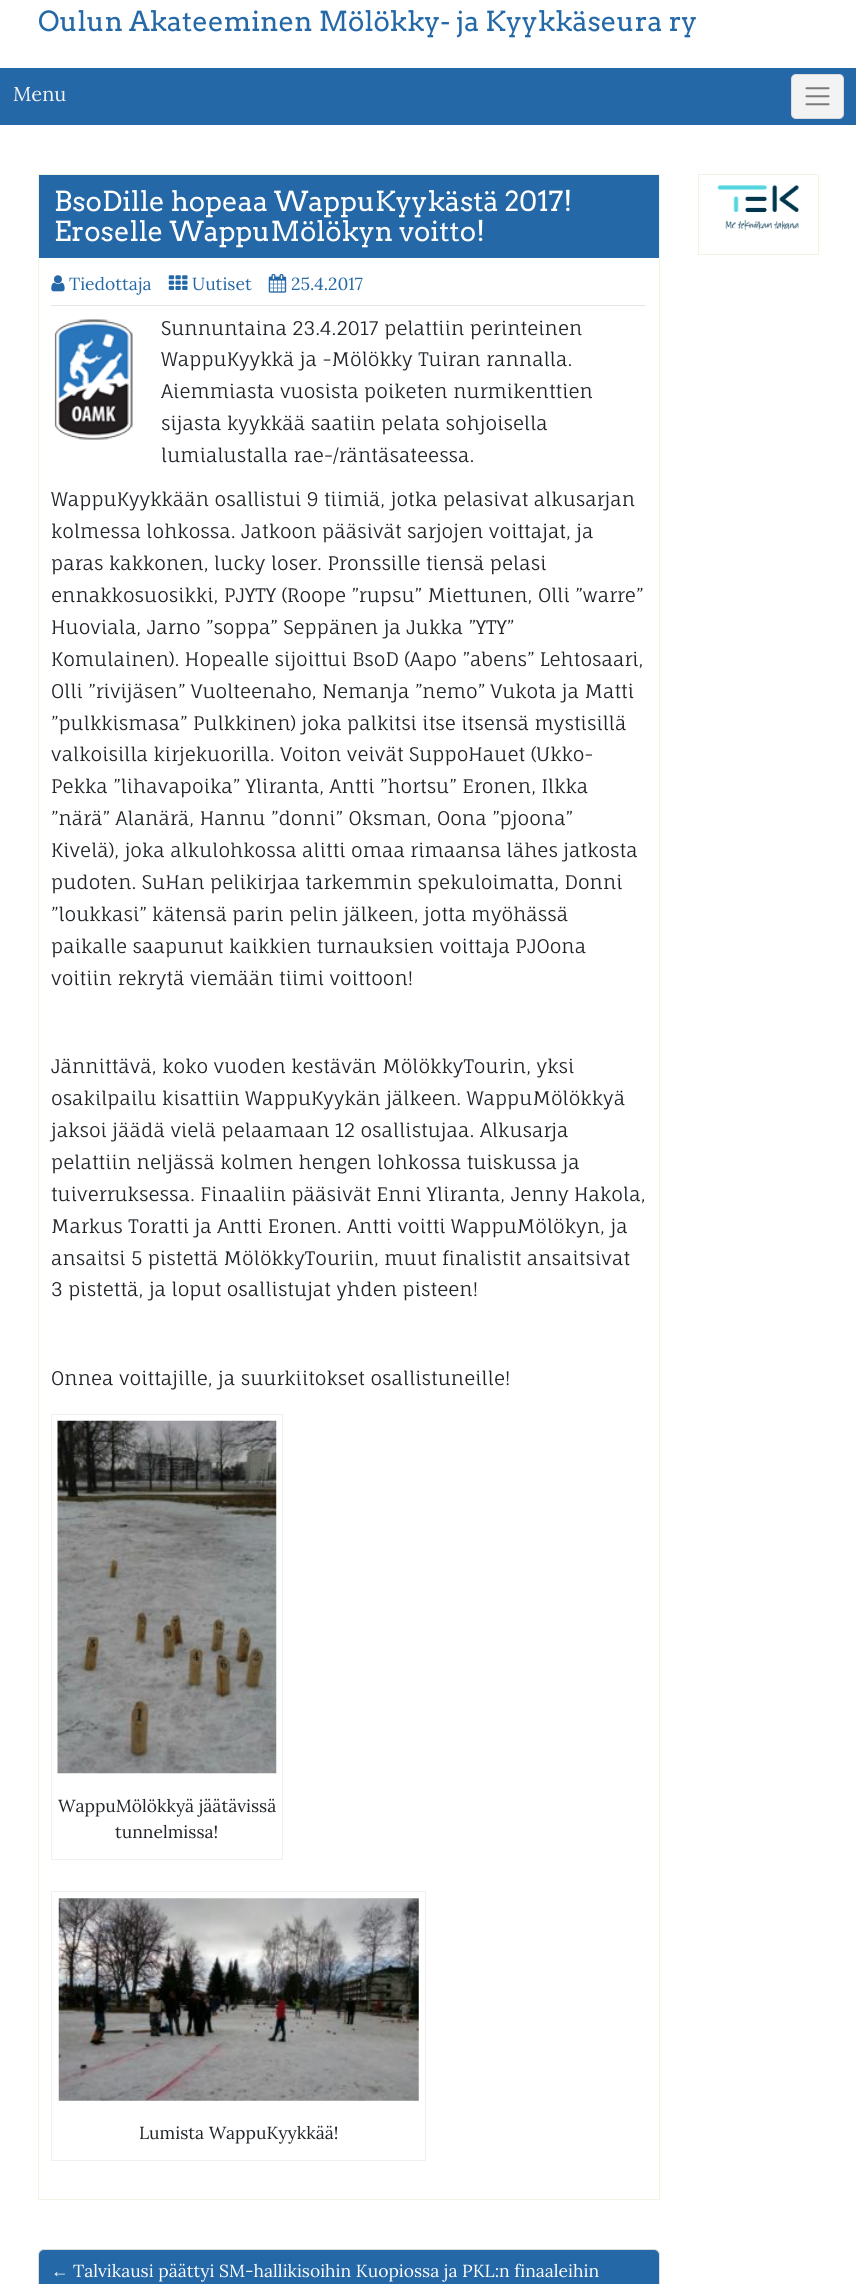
import math
import cairo


def round_path(ctx, x, y, w, h, r):
	ctx.new_sub_path()
	for i, (u, v) in enumerate([(x + w - r, y + h - r), (x + r, y + h - r), (x + r, y + r), (x + w - r, y + r)]):
		ctx.arc(u, v, r, i * math.pi / 2, (i + 1) * math.pi / 2)
	ctx.close_path()

def paste(ctx, path, x, y, w, h):
	ctx.save()
	ctx.set_source_surface(cairo.ImageSurface.create_from_png(path), x, y)
	ctx.rectangle(x, y, w, h)
	ctx.fill()
	ctx.restore()

def draw(ctx):
	ctx.set_source_rgb(1, 1, 1)
	ctx.paint()
	ctx.select_font_face('Arvo')
	ctx.set_font_size(27.5)
	ctx.set_source_rgb(0.141, 0.408, 0.655)
	ctx.move_to(38, 31)
	ctx.show_text('Oulun Akateeminen Mölökky- ja Kyykkäseura ry')
	ctx.rectangle(0, 68, 856, 57)
	ctx.fill()
	ctx.select_font_face('Lora')
	ctx.set_font_size(20)
	ctx.set_source_rgb(0.953, 0.953, 0.953)
	ctx.move_to(13, 101)
	ctx.show_text('Menu')
	round_path(ctx, 791, 74, 53, 45, 5)
	ctx.fill()
	round_path(ctx, 791.5, 74.5, 52, 44, 4.5)
	ctx.set_source_rgba(0, 0, 0, 0.1)
	ctx.set_line_width(1)
	ctx.stroke()
	paste(ctx, 'media/1.png', 805, 87, 25, 19)
	ctx.rectangle(38.5, 174.5, 621, 2025)
	ctx.set_source_rgb(0.929, 0.961, 0.886)
	ctx.stroke()
	ctx.set_source_rgb(0.141, 0.408, 0.655)
	ctx.rectangle(39, 175, 620, 83)
	ctx.fill()
	ctx.select_font_face('Arvo')
	ctx.set_font_size(27.5)
	ctx.set_source_rgb(1, 1, 1)
	ctx.move_to(54, 211)
	ctx.show_text('BsoDille hopeaa WappuKyykästä 2017!')
	ctx.move_to(54, 241)
	ctx.show_text('Eroselle WappuMölökyn voitto!')
	paste(ctx, 'media/2.png', 51, 275, 14, 17)
	ctx.select_font_face('Lora')
	ctx.set_font_size(17.5)
	ctx.set_source_rgb(0.141, 0.408, 0.655)
	ctx.move_to(69, 290)
	ctx.show_text('Tiedottaja')
	paste(ctx, 'media/3.png', 168, 275, 20, 15)
	ctx.move_to(192, 290)
	ctx.show_text('Uutiset')
	paste(ctx, 'media/4.png', 268, 273, 19, 20)
	ctx.move_to(291, 290)
	ctx.show_text('25.4.2017')
	ctx.set_source_rgb(0.902, 0.902, 0.902)
	ctx.rectangle(51, 305, 595, 1)
	ctx.fill()
	paste(ctx, 'media/5.png', 54, 319, 79, 121)
	ctx.select_font_face('Fauna One')
	ctx.set_font_size(18.75)
	ctx.set_source_rgb(0.129, 0.145, 0.161)
	for x, y, s in [
		(161, 335, 'Sunnuntaina 23.4.2017 pelattiin perinteinen'),
		(161, 366, 'WappuKyykkä ja -Mölökky Tuiran rannalla.'),
		(161, 398, 'Aiemmiasta vuosista poiketen nurmikenttien'),
		(161, 430, 'sijasta kyykkää saatiin pelata sohjoisella'),
		(161, 462, 'lumialustalla rae-/räntäsateessa.'),
		(51, 506, 'WappuKyykkään osallistui 9 tiimiä, jotka pelasivat alkusarjan'),
		(51, 538, 'kolmessa lohkossa. Jatkoon pääsivät sarjojen voittajat, ja'),
		(51, 570, 'paras kakkonen, lucky loser. Pronssille tiensä pelasi'),
		(51, 602, 'ennakkosuosikki, PJYTY (Roope ”rupsu” Miettunen, Olli ”warre”'),
		(51, 634, 'Huoviala, Jarno ”soppa” Seppänen ja Jukka ”YTY”'),
		(51, 666, 'Komulainen). Hopealle sijoittui BsoD (Aapo ”abens” Lehtosaari,'),
		(51, 698, 'Olli ”rivijäsen” Vuolteenaho, Nemanja ”nemo” Vukota ja Matti'),
		(51, 730, '”pulkkismasa” Pulkkinen) joka palkitsi itse itsensä mystisillä'),
		(51, 761, 'valkoisilla kirjekuorilla. Voiton veivät SuppoHauet (Ukko-'),
		(51, 793, 'Pekka ”lihavapoika” Yliranta, Antti ”hortsu” Eronen, Ilkka'),
		(51, 825, '”närä” Alanärä, Hannu ”donni” Oksman, Oona ”pjoona”'),
		(51, 857, 'Kivelä), joka alkulohkossa alitti omaa rimaansa lähes jatkosta'),
		(51, 889, 'pudoten. SuHan pelikirjaa tarkemmin spekuloimatta, Donni'),
		(51, 921, '”loukkasi” kätensä parin pelin jälkeen, jotta myöhässä'),
		(51, 953, 'paikalle saapunut kaikkien turnauksien voittaja PJOona'),
		(51, 985, 'voitiin rekrytä viemään tiimi voittoon!'),
		(51, 1073, 'Jännittävä, koko vuoden kestävän MölökkyTourin, yksi'),
		(51, 1105, 'osakilpailu kisattiin WappuKyykän jälkeen. WappuMölökkyä'),
		(51, 1137, 'jaksoi jäädä vielä pelaamaan 12 osallistujaa. Alkusarja'),
		(51, 1169, 'pelattiin neljässä kolmen hengen lohkossa tuiskussa ja'),
		(51, 1201, 'tuiverruksessa. Finaaliin pääsivät Enni Yliranta, Jenny Hakola,'),
		(51, 1233, 'Markus Toratti ja Antti Eronen. Antti voitti WappuMölökyn, ja'),
		(51, 1265, 'ansaitsi 5 pistettä MölökkyTouriin, muut finalistit ansaitsivat'),
		(51, 1296, '3 pistettä, ja loput osallistujat yhden pisteen!'),
		(51, 1385, 'Onnea voittajille, ja suurkiitokset osallistuneille!'),
	]:
		ctx.move_to(x, y)
		ctx.show_text(s)
	ctx.rectangle(51.5, 1414.5, 231, 445)
	ctx.set_source_rgb(0.941, 0.941, 0.941)
	ctx.stroke()
	paste(ctx, 'media/6.png', 57, 1420, 220, 354)
	ctx.select_font_face('Lora')
	ctx.set_font_size(17.5)
	ctx.set_source_rgb(0.129, 0.145, 0.161)
	ctx.move_to(58, 1812)
	ctx.show_text('WappuMölökkyä jäätävissä')
	ctx.move_to(115, 1838)
	ctx.show_text('tunnelmissa!')
	ctx.rectangle(51.5, 1891.5, 374, 269)
	ctx.set_source_rgb(0.941, 0.941, 0.941)
	ctx.stroke()
	paste(ctx, 'media/7.png', 58, 1898, 361, 203)
	ctx.set_source_rgb(0.129, 0.145, 0.161)
	ctx.move_to(139, 2139)
	ctx.show_text('Lumista WappuKyykkää!')
	ctx.set_source_rgb(0.141, 0.408, 0.655)
	round_path(ctx, 38.5, 2249.5, 621, 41, 5.5)
	ctx.fill_preserve()
	ctx.set_source_rgb(0.867, 0.867, 0.867)
	ctx.stroke()
	ctx.select_font_face('Liberation Serif')
	ctx.set_source_rgb(1, 1, 1)
	ctx.move_to(51, 2277)
	ctx.show_text('←')
	ctx.select_font_face('Lora')
	ctx.move_to(73, 2277)
	ctx.show_text('Talvikausi päättyi SM-hallikisoihin Kuopiossa ja PKL:n finaaleihin')
	ctx.rectangle(698.5, 174.5, 120, 80)
	ctx.set_source_rgb(0.929, 0.961, 0.886)
	ctx.stroke()
	paste(ctx, 'media/8.png', 717, 184, 82, 46)


surface = cairo.ImageSurface(cairo.FORMAT_RGB24, 856, 2284)
ctx = cairo.Context(surface)
options = cairo.FontOptions()
options.set_hint_metrics(cairo.HINT_METRICS_OFF)
options.set_hint_style(cairo.HINT_STYLE_NONE)
ctx.set_font_options(options)
ctx.set_miter_limit(4)
draw(ctx)
surface.write_to_png('image.png')
